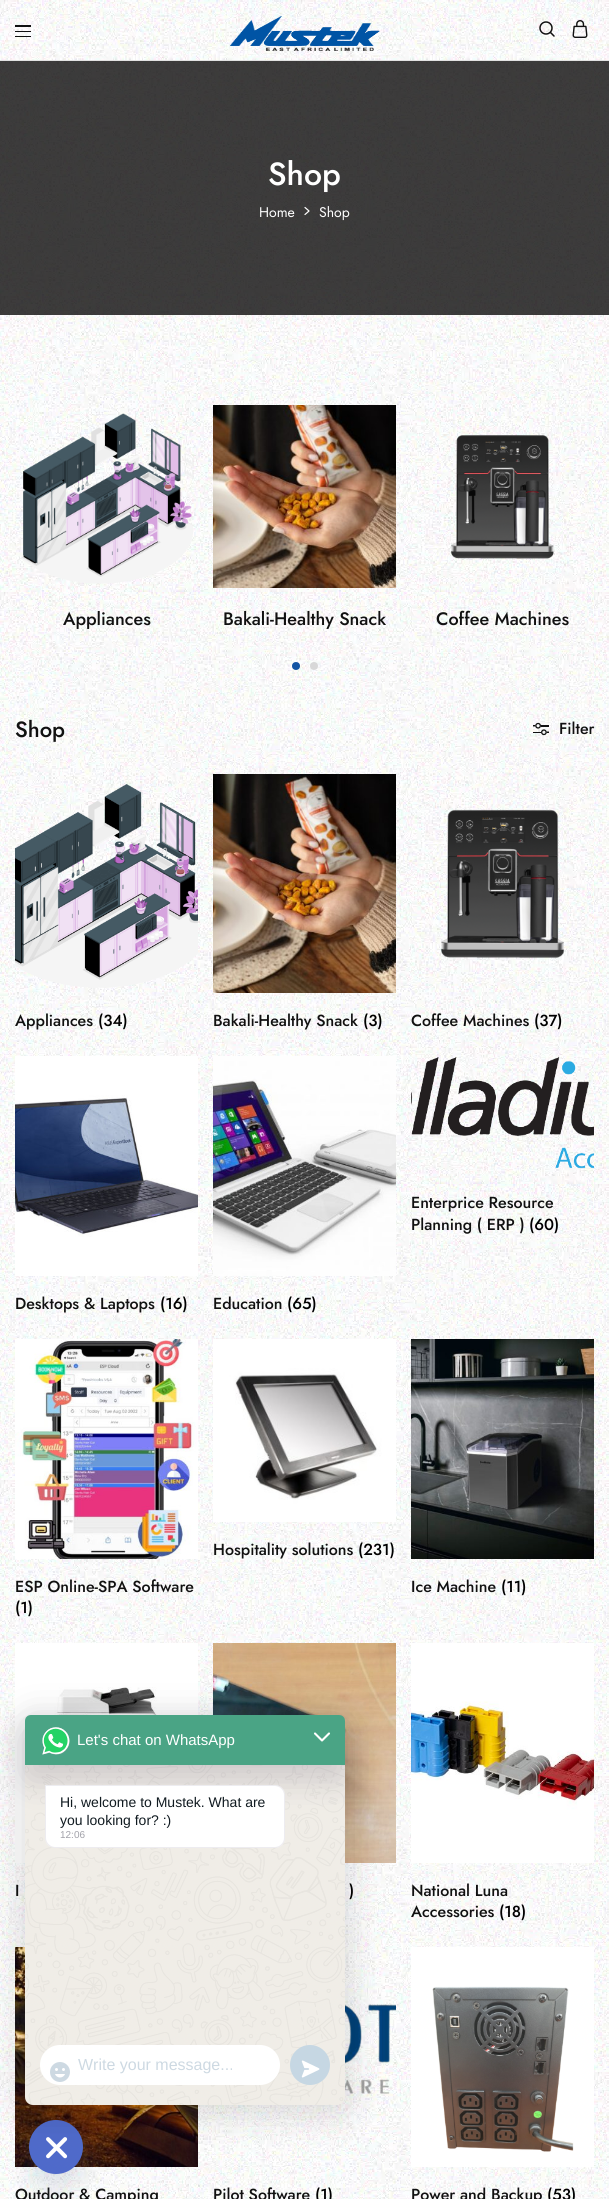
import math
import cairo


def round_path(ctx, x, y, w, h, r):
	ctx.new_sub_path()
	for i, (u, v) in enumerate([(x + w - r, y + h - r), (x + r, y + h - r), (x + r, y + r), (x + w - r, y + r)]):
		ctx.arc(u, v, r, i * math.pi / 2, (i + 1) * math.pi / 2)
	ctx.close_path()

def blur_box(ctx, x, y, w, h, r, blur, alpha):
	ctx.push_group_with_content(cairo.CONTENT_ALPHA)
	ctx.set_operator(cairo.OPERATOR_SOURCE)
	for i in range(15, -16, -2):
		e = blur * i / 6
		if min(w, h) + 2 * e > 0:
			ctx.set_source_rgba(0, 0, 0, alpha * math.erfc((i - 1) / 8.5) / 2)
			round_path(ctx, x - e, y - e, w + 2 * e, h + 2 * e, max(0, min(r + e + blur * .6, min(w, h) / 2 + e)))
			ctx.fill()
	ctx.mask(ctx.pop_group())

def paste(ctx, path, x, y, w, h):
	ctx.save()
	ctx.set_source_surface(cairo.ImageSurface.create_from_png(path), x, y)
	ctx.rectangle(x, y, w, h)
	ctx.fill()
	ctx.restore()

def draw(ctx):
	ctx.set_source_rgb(1, 1, 1)
	ctx.paint()
	paste(ctx, 'media/1.png', 0, 0, 609, 2199)
	ctx.set_source_rgb(0.886, 0.886, 0.886)
	ctx.rectangle(0, 60, 609, 1)
	ctx.fill()
	ctx.set_source_rgb(0.067, 0.067, 0.067)
	ctx.rectangle(15, 25, 16, 2)
	ctx.rectangle(15, 31, 16, 1)
	ctx.rectangle(15, 36, 16, 1)
	ctx.fill()
	paste(ctx, 'media/2.png', 230, 16, 150, 35)
	ctx.arc(546, 28, 6, 0, 2 * math.pi)
	ctx.set_line_width(1.5)
	ctx.stroke()
	ctx.new_path()
	ctx.move_to(554, 36)
	ctx.line_to(550.5, 32.5)
	ctx.set_line_cap(cairo.LINE_CAP_ROUND)
	ctx.set_line_join(cairo.LINE_JOIN_ROUND)
	ctx.stroke()
	paste(ctx, 'media/3.png', 572, 20, 16, 18)
	ctx.set_source_rgba(0.043, 0.039, 0.039, 0.79)
	ctx.rectangle(0, 61, 609, 254)
	ctx.fill()
	ctx.select_font_face('Jost Medium')
	ctx.set_font_size(32)
	ctx.set_source_rgb(1, 1, 1)
	ctx.move_to(268, 185)
	ctx.show_text('Shop')
	ctx.select_font_face('Jost')
	ctx.set_font_size(14)
	ctx.move_to(259, 217)
	ctx.show_text('Home')
	ctx.new_path()
	ctx.move_to(305, 214.5)
	ctx.line_to(309, 211)
	ctx.line_to(305, 207.5)
	ctx.set_line_width(1.2)
	ctx.stroke()
	ctx.move_to(319, 217)
	ctx.show_text('Shop')
	paste(ctx, 'media/4.png', 17, 411, 179, 173)
	ctx.select_font_face('Jost Medium')
	ctx.set_font_size(18)
	ctx.set_source_rgb(0.067, 0.067, 0.067)
	ctx.move_to(63, 625)
	ctx.show_text('Appliances')
	paste(ctx, 'media/5.png', 213, 405, 183, 183)
	ctx.move_to(223, 625)
	ctx.show_text('Bakali-Healthy Snack')
	paste(ctx, 'media/6.png', 451, 435, 103, 124)
	ctx.move_to(436, 625)
	ctx.show_text('Coffee Machines')
	ctx.set_source_rgb(0.071, 0.329, 0.639)
	ctx.new_path()
	ctx.arc(296, 666, 4, 0, 2 * math.pi)
	ctx.fill()
	ctx.set_source_rgb(0.847, 0.847, 0.847)
	ctx.arc(314, 666, 4, 0, 2 * math.pi)
	ctx.fill()
	ctx.set_font_size(22)
	ctx.set_source_rgb(0.067, 0.067, 0.067)
	ctx.move_to(15, 737)
	ctx.show_text('Shop')
	paste(ctx, 'media/7.png', 533, 722, 16, 14)
	ctx.set_font_size(16)
	ctx.move_to(559, 734)
	ctx.show_text('Filter')
	paste(ctx, 'media/8.png', 15, 781, 183, 207)
	ctx.move_to(15, 1026)
	ctx.show_text('Appliances')
	ctx.set_source_rgb(0, 0, 0)
	ctx.move_to(98, 1026)
	ctx.show_text('(34)')
	paste(ctx, 'media/9.png', 213, 774, 183, 219)
	ctx.set_source_rgb(0.067, 0.067, 0.067)
	ctx.move_to(213, 1026)
	ctx.show_text('Bakali-Healthy Snack')
	ctx.set_source_rgb(0, 0, 0)
	ctx.move_to(363, 1026)
	ctx.show_text('(3)')
	paste(ctx, 'media/10.png', 441, 809, 123, 149)
	ctx.set_source_rgb(0.067, 0.067, 0.067)
	ctx.move_to(411, 1026)
	ctx.show_text('Coffee Machines')
	ctx.set_source_rgb(0, 0, 0)
	ctx.move_to(534, 1026)
	ctx.show_text('(37)')
	paste(ctx, 'media/11.png', 411, 1057, 183, 112)
	ctx.set_source_rgb(0.067, 0.067, 0.067)
	ctx.move_to(411, 1208)
	ctx.show_text('Enterprice Resource')
	ctx.move_to(411, 1230)
	ctx.show_text('Planning ( ERP )')
	ctx.set_source_rgb(0, 0, 0)
	ctx.move_to(529, 1230)
	ctx.show_text('(60)')
	paste(ctx, 'media/12.png', 15, 1056, 183, 220)
	ctx.set_source_rgb(0.067, 0.067, 0.067)
	ctx.move_to(15, 1309)
	ctx.show_text('Desktops & Laptops')
	ctx.set_source_rgb(0, 0, 0)
	ctx.move_to(160, 1309)
	ctx.show_text('(16)')
	paste(ctx, 'media/13.png', 213, 1056, 183, 220)
	ctx.set_source_rgb(0.067, 0.067, 0.067)
	ctx.move_to(213, 1309)
	ctx.show_text('Education')
	ctx.set_source_rgb(0, 0, 0)
	ctx.move_to(287, 1309)
	ctx.show_text('(65)')
	paste(ctx, 'media/14.png', 213, 1339, 183, 183)
	ctx.set_source_rgb(0.067, 0.067, 0.067)
	ctx.move_to(213, 1555)
	ctx.show_text('Hospitality solutions')
	ctx.set_source_rgb(0, 0, 0)
	ctx.move_to(358, 1555)
	ctx.show_text('(231)')
	paste(ctx, 'media/15.png', 15, 1339, 183, 220)
	ctx.set_source_rgb(0.067, 0.067, 0.067)
	ctx.move_to(15, 1592)
	ctx.show_text('ESP Online-SPA Software')
	ctx.set_source_rgb(0, 0, 0)
	ctx.move_to(15, 1613)
	ctx.show_text('(1)')
	paste(ctx, 'media/16.png', 411, 1339, 183, 220)
	ctx.set_source_rgb(0.067, 0.067, 0.067)
	ctx.move_to(411, 1592)
	ctx.show_text('Ice Machine')
	ctx.set_source_rgb(0, 0, 0)
	ctx.move_to(501, 1592)
	ctx.show_text('(11)')
	paste(ctx, 'media/17.png', 15, 1643, 183, 220)
	ctx.set_source_rgb(0.067, 0.067, 0.067)
	ctx.move_to(15, 1896)
	ctx.show_text('I')
	paste(ctx, 'media/18.png', 213, 1643, 183, 220)
	ctx.set_source_rgb(0, 0, 0)
	ctx.move_to(349, 1896)
	ctx.show_text(')')
	paste(ctx, 'media/19.png', 411, 1643, 183, 220)
	ctx.set_source_rgb(0.067, 0.067, 0.067)
	ctx.move_to(411, 1896)
	ctx.show_text('National Luna')
	ctx.move_to(411, 1917)
	ctx.show_text('Accessories')
	ctx.set_source_rgb(0, 0, 0)
	ctx.move_to(499, 1917)
	ctx.show_text('(18)')
	paste(ctx, 'media/20.png', 15, 1947, 183, 220)
	ctx.set_source_rgb(0.067, 0.067, 0.067)
	ctx.move_to(15, 2200)
	ctx.show_text('Outdoor & Camping')
	paste(ctx, 'media/21.png', 345, 2004, 51, 90)
	ctx.move_to(213, 2200)
	ctx.show_text('Pilot Software')
	ctx.set_source_rgb(0, 0, 0)
	ctx.move_to(315, 2200)
	ctx.show_text('(1)')
	paste(ctx, 'media/22.png', 411, 1947, 183, 220)
	ctx.set_source_rgb(0.067, 0.067, 0.067)
	ctx.move_to(411, 2200)
	ctx.show_text('Power and Backup')
	ctx.set_source_rgb(0, 0, 0)
	ctx.move_to(547, 2200)
	ctx.show_text('(53)')
	ctx.set_source_rgb(0.286, 0.408, 0.494)
	blur_box(ctx, 29, 2136, 54, 54, 27, 12, 0.16)
	paste(ctx, 'media/27.png', 29, 2120, 54, 54)
	ctx.set_source_rgb(0, 0, 0)
	blur_box(ctx, 25, 1720, 320, 390, 6, 20, 0.16)
	ctx.set_source_rgb(0.941, 0.929, 0.906)
	round_path(ctx, 25, 1715, 320, 390, 8)
	ctx.fill()
	paste(ctx, 'media/23.png', 25, 1717, 320, 388)
	ctx.set_source_rgb(0.102, 0.055, 0.208)
	blur_box(ctx, 25, 1731, 320, 50, 6, 16, 0.16)
	ctx.set_source_rgb(0.29, 0.643, 0.522)
	ctx.new_path()
	ctx.move_to(31, 1715)
	ctx.line_to(339, 1715)
	ctx.curve_to(342.5, 1715, 345, 1717.5, 345, 1721)
	ctx.line_to(345, 1765)
	ctx.line_to(25, 1765)
	ctx.line_to(25, 1721)
	ctx.curve_to(25, 1717.5, 27.5, 1715, 31, 1715)
	ctx.close_path()
	ctx.fill()
	paste(ctx, 'media/24.png', 42, 1727, 28, 28)
	ctx.select_font_face('Liberation Sans')
	ctx.set_font_size(15)
	ctx.set_source_rgb(1, 1, 1)
	ctx.move_to(77, 1745)
	ctx.show_text('Let\'s chat on WhatsApp')
	ctx.new_path()
	ctx.move_to(315, 1733.5)
	ctx.line_to(322, 1740.5)
	ctx.line_to(329, 1733.5)
	ctx.set_line_width(2.1)
	ctx.stroke()
	ctx.new_path()
	ctx.move_to(45, 1785)
	ctx.line_to(275, 1785)
	ctx.curve_to(280.5, 1785, 285, 1789.5, 285, 1795)
	ctx.line_to(285, 1838)
	ctx.curve_to(285, 1843.5, 280.5, 1848, 275, 1848)
	ctx.line_to(55, 1848)
	ctx.curve_to(49.5, 1848, 45, 1843.5, 45, 1838)
	ctx.close_path()
	ctx.fill()
	ctx.new_path()
	ctx.move_to(45.5, 1785.5)
	ctx.line_to(275, 1785.5)
	ctx.curve_to(280, 1785.5, 284.5, 1790, 284.5, 1795)
	ctx.line_to(284.5, 1838)
	ctx.curve_to(284.5, 1843, 280, 1847.5, 275, 1847.5)
	ctx.line_to(55, 1847.5)
	ctx.curve_to(50, 1847.5, 45.5, 1843, 45.5, 1838)
	ctx.close_path()
	ctx.set_source_rgba(0.133, 0.067, 0.278, 0.08)
	ctx.set_line_width(1)
	ctx.set_line_cap(cairo.LINE_CAP_BUTT)
	ctx.set_line_join(cairo.LINE_JOIN_MITER)
	ctx.stroke()
	ctx.set_font_size(14)
	ctx.set_source_rgb(0.067, 0.106, 0.129)
	ctx.move_to(60, 1807)
	ctx.show_text('Hi, welcome to Mustek. What are')
	ctx.move_to(60, 1825)
	ctx.show_text('you looking for? :)')
	ctx.set_font_size(10)
	ctx.set_source_rgb(0.631, 0.631, 0.663)
	ctx.move_to(60, 1838)
	ctx.show_text('12:06')
	ctx.set_source_rgb(1, 1, 1)
	round_path(ctx, 40, 2045, 240, 40, 20)
	ctx.fill()
	paste(ctx, 'media/25.png', 50, 2062, 20, 20)
	ctx.set_font_size(16)
	ctx.set_source_rgb(0.804, 0.851, 0.886)
	ctx.move_to(78, 2070)
	ctx.show_text('Write your message...')
	ctx.set_source_rgb(0.776, 0.843, 0.89)
	ctx.new_path()
	ctx.arc(310, 2065, 20, 0, 2 * math.pi)
	ctx.fill()
	paste(ctx, 'media/26.png', 301, 2060, 19, 18)


surface = cairo.ImageSurface(cairo.FORMAT_RGB24, 609, 2199)
ctx = cairo.Context(surface)
options = cairo.FontOptions()
options.set_hint_metrics(cairo.HINT_METRICS_OFF)
options.set_hint_style(cairo.HINT_STYLE_NONE)
ctx.set_font_options(options)
ctx.set_miter_limit(4)
draw(ctx)
surface.write_to_png('image.png')
